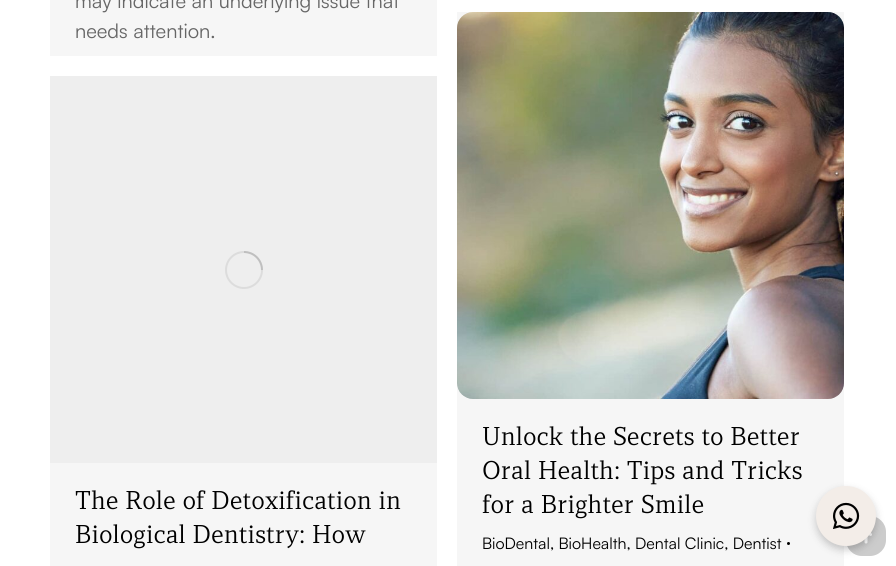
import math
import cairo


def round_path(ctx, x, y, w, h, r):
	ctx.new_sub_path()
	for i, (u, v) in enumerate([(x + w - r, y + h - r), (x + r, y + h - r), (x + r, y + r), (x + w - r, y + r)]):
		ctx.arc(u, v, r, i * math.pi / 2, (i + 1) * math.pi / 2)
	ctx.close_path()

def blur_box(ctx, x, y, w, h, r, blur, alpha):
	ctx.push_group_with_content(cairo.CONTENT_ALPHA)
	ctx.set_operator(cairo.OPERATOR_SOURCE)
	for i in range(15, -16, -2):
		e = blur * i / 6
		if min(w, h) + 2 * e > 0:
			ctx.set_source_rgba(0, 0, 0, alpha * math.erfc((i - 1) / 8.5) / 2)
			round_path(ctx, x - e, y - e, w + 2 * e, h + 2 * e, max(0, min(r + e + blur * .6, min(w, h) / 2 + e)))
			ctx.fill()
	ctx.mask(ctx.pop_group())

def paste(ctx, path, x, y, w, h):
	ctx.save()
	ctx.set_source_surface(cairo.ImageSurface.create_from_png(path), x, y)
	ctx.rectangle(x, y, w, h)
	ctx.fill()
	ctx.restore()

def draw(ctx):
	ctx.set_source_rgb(1, 1, 1)
	ctx.paint()
	ctx.set_source_rgb(0.961, 0.961, 0.961)
	ctx.rectangle(50, 0, 387, 56)
	ctx.fill()
	ctx.select_font_face('Satoshi')
	ctx.set_font_size(20)
	ctx.set_source_rgb(0.4, 0.4, 0.4)
	ctx.move_to(75, 8)
	ctx.show_text('may indicate an underlying issue that')
	ctx.move_to(75, 38)
	ctx.show_text('needs attention.')
	ctx.set_source_rgb(0.961, 0.961, 0.961)
	ctx.rectangle(50, 463, 387, 103)
	ctx.fill()
	ctx.set_source_rgb(0.933, 0.933, 0.933)
	ctx.rectangle(50, 76, 387, 387)
	ctx.fill()
	ctx.arc(244, 270, 18, 0, 2 * math.pi)
	ctx.set_source_rgb(0.863, 0.863, 0.863)
	ctx.stroke()
	ctx.new_path()
	ctx.move_to(262, 270)
	ctx.curve_to(262, 260, 254, 252, 244, 252)
	ctx.set_source_rgba(0.42, 0.42, 0.42, 0.25)
	ctx.stroke()
	ctx.select_font_face('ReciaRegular')
	ctx.set_font_size(24)
	ctx.set_source_rgb(0, 0, 0)
	ctx.move_to(75, 509)
	ctx.show_text('The Role of Detoxification in')
	ctx.move_to(75, 543)
	ctx.show_text('Biological Dentistry: How')
	ctx.set_source_rgb(0.961, 0.961, 0.961)
	ctx.rectangle(457, 12, 387, 554)
	ctx.fill()
	paste(ctx, 'media/1.png', 457, 12, 387, 387)
	ctx.set_source_rgb(0, 0, 0)
	for x, y, s in [
		(482, 445, 'Unlock the Secrets to Better'),
		(482, 479, 'Oral Health: Tips and Tricks'),
		(482, 513, 'for a Brighter Smile'),
	]:
		ctx.move_to(x, y)
		ctx.show_text(s)
	ctx.select_font_face('Satoshi')
	ctx.set_font_size(16)
	ctx.move_to(482, 549)
	ctx.show_text('BioDental, BioHealth, Dental Clinic, Dentist')
	ctx.new_path()
	ctx.arc(788.5, 543.5, 1.5, 0, 2 * math.pi)
	ctx.fill()
	ctx.set_source_rgb(0.8, 0.8, 0.8)
	round_path(ctx, 846, 516, 40, 40, 16)
	ctx.fill()
	paste(ctx, 'media/2.png', 864, 532, 8, 12)
	ctx.set_source_rgb(0, 0, 0)
	blur_box(ctx, 816, 490, 60, 60, 30, 4, 0.2)
	ctx.set_source_rgb(0.953, 0.929, 0.91)
	ctx.arc(846, 516, 30, 0, 2 * math.pi)
	ctx.fill()
	paste(ctx, 'media/3.png', 833, 502, 27, 27)


surface = cairo.ImageSurface(cairo.FORMAT_RGB24, 896, 566)
ctx = cairo.Context(surface)
options = cairo.FontOptions()
options.set_hint_metrics(cairo.HINT_METRICS_OFF)
options.set_hint_style(cairo.HINT_STYLE_NONE)
ctx.set_font_options(options)
ctx.set_miter_limit(4)
draw(ctx)
surface.write_to_png('image.png')
